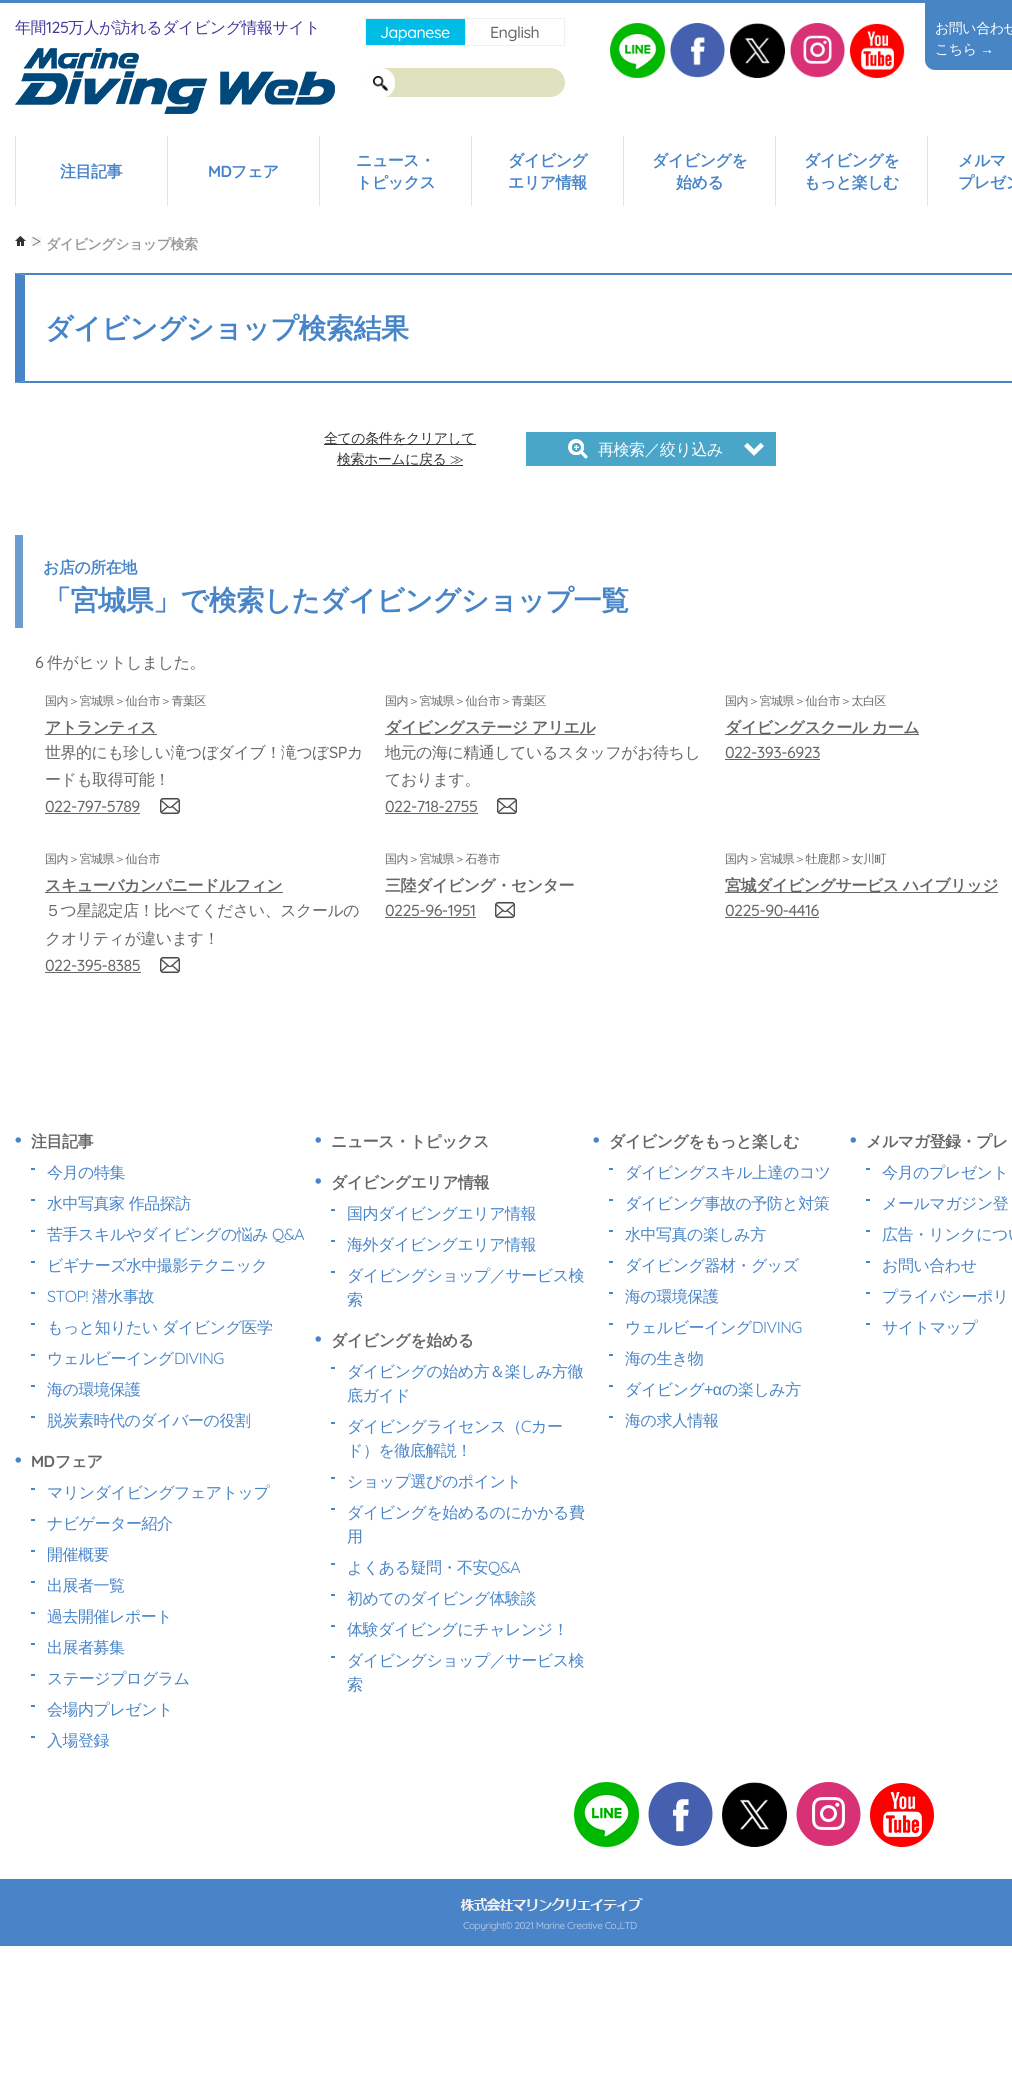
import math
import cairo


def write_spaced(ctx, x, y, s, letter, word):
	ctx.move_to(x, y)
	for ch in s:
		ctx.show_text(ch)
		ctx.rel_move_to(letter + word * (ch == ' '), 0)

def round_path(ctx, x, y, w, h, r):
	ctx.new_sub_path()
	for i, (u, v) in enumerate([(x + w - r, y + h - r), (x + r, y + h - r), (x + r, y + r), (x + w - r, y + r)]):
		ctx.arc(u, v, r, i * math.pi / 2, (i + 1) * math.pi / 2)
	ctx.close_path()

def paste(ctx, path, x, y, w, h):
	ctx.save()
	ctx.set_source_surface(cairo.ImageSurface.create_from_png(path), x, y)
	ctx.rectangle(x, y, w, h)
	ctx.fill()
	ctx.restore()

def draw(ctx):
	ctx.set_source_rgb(1, 1, 1)
	ctx.paint()
	ctx.set_source_rgb(0.282, 0.522, 0.769)
	ctx.rectangle(0, 0, 1012, 3)
	ctx.fill()
	ctx.select_font_face('WenQuanYi Zen Hei Medium')
	ctx.set_font_size(16)
	ctx.set_source_rgb(0.259, 0.227, 0.616)
	write_spaced(ctx, 15, 33, '年間', -0.5, 0)
	ctx.select_font_face('Quicksand Medium')
	write_spaced(ctx, 46, 33, '125', -0.5, 0)
	ctx.select_font_face('WenQuanYi Zen Hei Medium')
	write_spaced(ctx, 68, 33, '万人が訪れるダイビング情報サイト', -0.5, 0)
	ctx.rectangle(365.5, 18.5, 199, 27)
	ctx.set_source_rgb(0.941, 0.941, 0.941)
	ctx.set_line_width(1)
	ctx.stroke()
	ctx.set_source_rgb(0, 0.737, 0.902)
	ctx.rectangle(366, 19, 99, 26)
	ctx.fill()
	ctx.select_font_face('Quicksand Medium')
	ctx.set_source_rgb(1, 1, 1)
	write_spaced(ctx, 380, 38, 'Japanese', -0.5, 0)
	ctx.set_source_rgb(0.941, 0.941, 0.941)
	ctx.rectangle(465, 19, 1, 26)
	ctx.fill()
	ctx.set_source_rgb(0.4, 0.4, 0.4)
	write_spaced(ctx, 490, 38, 'English', -0.5, 0)
	paste(ctx, 'media/1.png', 610, 23, 55, 55)
	paste(ctx, 'media/2.png', 670, 23, 55, 55)
	paste(ctx, 'media/3.png', 730, 23, 55, 55)
	paste(ctx, 'media/4.png', 790, 23, 55, 55)
	paste(ctx, 'media/5.png', 850, 23, 55, 55)
	ctx.set_source_rgb(0.282, 0.522, 0.769)
	ctx.new_path()
	ctx.move_to(925, 3)
	ctx.line_to(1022, 3)
	ctx.line_to(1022, 60)
	ctx.curve_to(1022, 65.5, 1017.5, 70, 1012, 70)
	ctx.line_to(935, 70)
	ctx.curve_to(929.5, 70, 925, 65.5, 925, 60)
	ctx.close_path()
	ctx.fill()
	ctx.select_font_face('WenQuanYi Zen Hei Medium')
	ctx.set_font_size(14)
	ctx.set_source_rgb(1, 1, 1)
	write_spaced(ctx, 935, 33, 'お問い合わせ', -0.5, 0)
	write_spaced(ctx, 935, 54, 'こちら', -0.5, 0)
	ctx.select_font_face('Liberation Sans')
	write_spaced(ctx, 980, 54, '→', -0.5, 0)
	paste(ctx, 'media/6.png', 15, 48, 320, 66)
	ctx.set_source_rgb(0.878, 0.882, 0.749)
	round_path(ctx, 365, 68, 200, 29, 14.5)
	ctx.fill()
	ctx.set_source_rgb(1, 1, 1)
	round_path(ctx, 365, 68, 30, 30, 14)
	ctx.fill()
	paste(ctx, 'media/7.png', 373, 76, 15, 15)
	ctx.set_source_rgb(0.898, 0.898, 0.898)
	ctx.rectangle(15, 136, 1, 70)
	ctx.fill()
	ctx.select_font_face('WenQuanYi Zen Hei', cairo.FONT_SLANT_NORMAL, cairo.FONT_WEIGHT_BOLD)
	ctx.set_font_size(16)
	ctx.set_source_rgb(0.282, 0.518, 0.784)
	write_spaced(ctx, 60, 177, '注目記事', -0.5, 0)
	ctx.set_source_rgb(0.898, 0.898, 0.898)
	ctx.rectangle(167, 136, 1, 70)
	ctx.fill()
	ctx.select_font_face('Quicksand', cairo.FONT_SLANT_NORMAL, cairo.FONT_WEIGHT_BOLD)
	ctx.set_source_rgb(0.282, 0.518, 0.784)
	write_spaced(ctx, 208, 177, 'MD', -0.5, 0)
	ctx.select_font_face('WenQuanYi Zen Hei', cairo.FONT_SLANT_NORMAL, cairo.FONT_WEIGHT_BOLD)
	write_spaced(ctx, 231, 177, 'フェア', -0.5, 0)
	ctx.set_source_rgb(0.898, 0.898, 0.898)
	ctx.rectangle(319, 136, 1, 70)
	ctx.fill()
	ctx.set_source_rgb(0.282, 0.518, 0.784)
	write_spaced(ctx, 356, 166, 'ニュース・', -0.5, 0)
	write_spaced(ctx, 356, 188, 'トピックス', -0.5, 0)
	ctx.set_source_rgb(0.898, 0.898, 0.898)
	ctx.rectangle(471, 136, 1, 70)
	ctx.fill()
	ctx.set_source_rgb(0.282, 0.518, 0.784)
	write_spaced(ctx, 508, 166, 'ダイビング', -0.5, 0)
	write_spaced(ctx, 508, 188, 'エリア情報', -0.5, 0)
	ctx.set_source_rgb(0.898, 0.898, 0.898)
	ctx.rectangle(623, 136, 1, 70)
	ctx.fill()
	ctx.set_source_rgb(0.282, 0.518, 0.784)
	write_spaced(ctx, 652, 166, 'ダイビングを', -0.5, 0)
	write_spaced(ctx, 676, 188, '始める', -0.5, 0)
	ctx.set_source_rgb(0.898, 0.898, 0.898)
	ctx.rectangle(775, 136, 1, 70)
	ctx.fill()
	ctx.set_source_rgb(0.282, 0.518, 0.784)
	write_spaced(ctx, 804, 166, 'ダイビングを', -0.5, 0)
	write_spaced(ctx, 804, 188, 'もっと楽しむ', -0.5, 0)
	ctx.set_source_rgb(0.898, 0.898, 0.898)
	ctx.rectangle(927, 136, 1, 70)
	ctx.fill()
	ctx.set_source_rgb(0.282, 0.518, 0.784)
	write_spaced(ctx, 958, 166, 'メルマ', -0.5, 0)
	write_spaced(ctx, 958, 188, 'プレゼン', -0.5, 0)
	paste(ctx, 'media/8.png', 31, 237, 10, 9)
	paste(ctx, 'media/9.png', 15, 236, 11, 10)
	ctx.set_font_size(14)
	ctx.set_source_rgb(0.6, 0.6, 0.6)
	write_spaced(ctx, 46, 249, 'ダイビングショップ検索', -0.5, 0)
	ctx.set_source_rgb(0.286, 0.518, 0.784)
	ctx.new_path()
	ctx.move_to(15, 273)
	ctx.line_to(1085, 273)
	ctx.line_to(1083, 275)
	ctx.line_to(25, 275)
	ctx.close_path()
	ctx.fill()
	ctx.new_path()
	ctx.move_to(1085, 383)
	ctx.line_to(15, 383)
	ctx.line_to(25, 381)
	ctx.line_to(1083, 381)
	ctx.close_path()
	ctx.fill()
	ctx.set_source_rgb(0.282, 0.518, 0.784)
	ctx.new_path()
	ctx.move_to(15, 383)
	ctx.line_to(15, 273)
	ctx.line_to(25, 275)
	ctx.line_to(25, 381)
	ctx.close_path()
	ctx.fill()
	ctx.set_font_size(28)
	write_spaced(ctx, 45, 338, 'ダイビングショップ検索結果', -0.5, 0)
	ctx.set_source_rgb(0.2, 0.2, 0.2)
	ctx.rectangle(324, 444, 152, 1)
	ctx.fill()
	ctx.select_font_face('WenQuanYi Zen Hei Medium')
	ctx.set_font_size(14)
	write_spaced(ctx, 324, 443, '全ての条件をクリアして', -0.5, 0)
	ctx.rectangle(337, 465, 126, 1)
	ctx.fill()
	write_spaced(ctx, 337, 464, '検索ホームに戻る ≫', -0.5, 0)
	ctx.set_source_rgb(0.286, 0.651, 0.784)
	ctx.rectangle(526, 432, 250, 34)
	ctx.fill()
	paste(ctx, 'media/10.png', 744, 442, 20, 14)
	paste(ctx, 'media/11.png', 568, 439, 20, 20)
	ctx.set_font_size(16)
	ctx.set_source_rgb(1, 1, 1)
	write_spaced(ctx, 598, 455, '再検索／絞り込み', -0.5, 0)
	ctx.set_source_rgb(0.427, 0.616, 0.816)
	ctx.rectangle(15, 535, 8, 93)
	ctx.fill()
	ctx.select_font_face('WenQuanYi Zen Hei', cairo.FONT_SLANT_NORMAL, cairo.FONT_WEIGHT_BOLD)
	ctx.set_source_rgb(0.282, 0.518, 0.784)
	write_spaced(ctx, 43, 573, 'お店の所在地', -0.5, 0)
	ctx.set_font_size(28)
	write_spaced(ctx, 43, 610, '「宮城県」で検索したダイビングショップ一覧', -0.5, 0)
	ctx.select_font_face('Quicksand Medium')
	ctx.set_font_size(16)
	ctx.set_source_rgb(0.4, 0.4, 0.4)
	write_spaced(ctx, 35, 668, '6', -0.5, 0)
	ctx.select_font_face('WenQuanYi Zen Hei Medium')
	write_spaced(ctx, 47, 668, '件がヒットしました。', -0.5, 0)
	ctx.set_font_size(12)
	write_spaced(ctx, 45, 705, '国内＞宮城県＞仙台市＞青葉区', -0.5, 0)
	ctx.rectangle(45, 734, 112, 1)
	ctx.fill()
	ctx.select_font_face('WenQuanYi Zen Hei', cairo.FONT_SLANT_NORMAL, cairo.FONT_WEIGHT_BOLD)
	ctx.set_font_size(16)
	write_spaced(ctx, 45, 733, 'アトランティス', -0.5, 0)
	ctx.select_font_face('WenQuanYi Zen Hei Medium')
	write_spaced(ctx, 45, 758, '世界的にも珍しい滝つぼダイブ！滝つぼ', -0.5, 0)
	ctx.select_font_face('Quicksand Medium')
	write_spaced(ctx, 329, 758, 'SP', -0.5, 0)
	ctx.select_font_face('WenQuanYi Zen Hei Medium')
	write_spaced(ctx, 347, 758, 'カ', -0.5, 0)
	write_spaced(ctx, 45, 785, 'ードも取得可能！', -0.5, 0)
	ctx.select_font_face('Quicksand Medium')
	write_spaced(ctx, 45, 812, '022-797-5789', -0.5, 0)
	ctx.rectangle(45, 813, 95, 1)
	ctx.fill()
	paste(ctx, 'media/12.png', 160, 797, 20, 18)
	ctx.select_font_face('WenQuanYi Zen Hei Medium')
	ctx.set_font_size(12)
	write_spaced(ctx, 385, 705, '国内＞宮城県＞仙台市＞青葉区', -0.5, 0)
	ctx.rectangle(385, 734, 210, 1)
	ctx.fill()
	ctx.select_font_face('WenQuanYi Zen Hei', cairo.FONT_SLANT_NORMAL, cairo.FONT_WEIGHT_BOLD)
	ctx.set_font_size(16)
	write_spaced(ctx, 385, 733, 'ダイビングステージ アリエル', -0.5, 0)
	ctx.select_font_face('WenQuanYi Zen Hei Medium')
	write_spaced(ctx, 385, 758, '地元の海に精通しているスタッフがお待ちし', -0.5, 0)
	write_spaced(ctx, 385, 785, 'ております。', -0.5, 0)
	ctx.select_font_face('Quicksand Medium')
	write_spaced(ctx, 385, 812, '022-718-2755', -0.5, 0)
	ctx.rectangle(385, 813, 93, 1)
	ctx.fill()
	paste(ctx, 'media/12.png', 497, 797, 20, 18)
	ctx.select_font_face('WenQuanYi Zen Hei Medium')
	ctx.set_font_size(12)
	write_spaced(ctx, 725, 705, '国内＞宮城県＞仙台市＞太白区', -0.5, 0)
	ctx.rectangle(725, 734, 194, 1)
	ctx.fill()
	ctx.select_font_face('WenQuanYi Zen Hei', cairo.FONT_SLANT_NORMAL, cairo.FONT_WEIGHT_BOLD)
	ctx.set_font_size(16)
	write_spaced(ctx, 725, 733, 'ダイビングスクール カーム', -0.5, 0)
	ctx.select_font_face('Quicksand Medium')
	write_spaced(ctx, 725, 758, '022-393-6923', -0.5, 0)
	ctx.rectangle(725, 759, 95, 1)
	ctx.fill()
	ctx.select_font_face('WenQuanYi Zen Hei Medium')
	ctx.set_font_size(12)
	write_spaced(ctx, 45, 863, '国内＞宮城県＞仙台市', -0.5, 0)
	ctx.rectangle(45, 892, 238, 1)
	ctx.fill()
	ctx.select_font_face('WenQuanYi Zen Hei', cairo.FONT_SLANT_NORMAL, cairo.FONT_WEIGHT_BOLD)
	ctx.set_font_size(16)
	write_spaced(ctx, 45, 891, 'スキューバカンパニードルフィン', -0.5, 0)
	ctx.select_font_face('WenQuanYi Zen Hei Medium')
	write_spaced(ctx, 45, 916, '５つ星認定店！比べてください、スクールの', -0.5, 0)
	write_spaced(ctx, 45, 944, 'クオリティが違います！', -0.5, 0)
	ctx.select_font_face('Quicksand Medium')
	write_spaced(ctx, 45, 971, '022-395-8385', -0.5, 0)
	ctx.rectangle(45, 972, 96, 1)
	ctx.fill()
	paste(ctx, 'media/12.png', 160, 956, 20, 18)
	ctx.select_font_face('WenQuanYi Zen Hei Medium')
	ctx.set_font_size(12)
	write_spaced(ctx, 385, 863, '国内＞宮城県＞石巻市', -0.5, 0)
	ctx.select_font_face('WenQuanYi Zen Hei', cairo.FONT_SLANT_NORMAL, cairo.FONT_WEIGHT_BOLD)
	ctx.set_font_size(16)
	write_spaced(ctx, 385, 891, '三陸ダイビング・センター', -0.5, 0)
	ctx.select_font_face('Quicksand Medium')
	write_spaced(ctx, 385, 916, '0225-96-1951', -0.5, 0)
	ctx.rectangle(385, 917, 91, 1)
	ctx.fill()
	paste(ctx, 'media/12.png', 495, 901, 20, 18)
	ctx.select_font_face('WenQuanYi Zen Hei Medium')
	ctx.set_font_size(12)
	write_spaced(ctx, 725, 863, '国内＞宮城県＞牡鹿郡＞女川町', -0.5, 0)
	ctx.rectangle(725, 892, 273, 1)
	ctx.fill()
	ctx.select_font_face('WenQuanYi Zen Hei', cairo.FONT_SLANT_NORMAL, cairo.FONT_WEIGHT_BOLD)
	ctx.set_font_size(16)
	write_spaced(ctx, 725, 891, '宮城ダイビングサービス ハイブリッジ', -0.5, 0)
	ctx.select_font_face('Quicksand Medium')
	write_spaced(ctx, 725, 916, '0225-90-4416', -0.5, 0)
	ctx.rectangle(725, 917, 94, 1)
	ctx.fill()
	paste(ctx, 'media/13.png', 15, 1137, 6, 6)
	ctx.select_font_face('WenQuanYi Zen Hei', cairo.FONT_SLANT_NORMAL, cairo.FONT_WEIGHT_BOLD)
	write_spaced(ctx, 31, 1147, '注目記事', -0.5, 0)
	ctx.set_source_rgb(0.286, 0.518, 0.784)
	ctx.rectangle(31, 1168, 4, 2)
	ctx.fill()
	ctx.select_font_face('WenQuanYi Zen Hei Medium')
	ctx.set_source_rgb(0.282, 0.518, 0.784)
	write_spaced(ctx, 47, 1178, '今月の特集', -0.5, 0)
	ctx.set_source_rgb(0.286, 0.518, 0.784)
	ctx.rectangle(31, 1199, 4, 2)
	ctx.fill()
	ctx.set_source_rgb(0.282, 0.518, 0.784)
	write_spaced(ctx, 47, 1209, '水中写真家 作品探訪', -0.5, 0)
	ctx.set_source_rgb(0.286, 0.518, 0.784)
	ctx.rectangle(31, 1230, 4, 2)
	ctx.fill()
	ctx.set_source_rgb(0.282, 0.518, 0.784)
	write_spaced(ctx, 47, 1240, '苦手スキルやダイビングの悩み', -0.5, 0)
	ctx.select_font_face('Quicksand')
	write_spaced(ctx, 272, 1240, 'Q&A', -0.5, 0)
	ctx.set_source_rgb(0.286, 0.518, 0.784)
	ctx.rectangle(31, 1261, 4, 2)
	ctx.fill()
	ctx.select_font_face('WenQuanYi Zen Hei Medium')
	ctx.set_source_rgb(0.282, 0.518, 0.784)
	write_spaced(ctx, 47, 1271, 'ビギナーズ水中撮影テクニック', -0.5, 0)
	ctx.set_source_rgb(0.286, 0.518, 0.784)
	ctx.rectangle(31, 1292, 4, 2)
	ctx.fill()
	ctx.select_font_face('Quicksand')
	ctx.set_source_rgb(0.282, 0.518, 0.784)
	write_spaced(ctx, 47, 1302, 'STOP!', -0.5, 0)
	ctx.select_font_face('WenQuanYi Zen Hei Medium')
	write_spaced(ctx, 92, 1302, '潜水事故', -0.5, 0)
	ctx.set_source_rgb(0.286, 0.518, 0.784)
	ctx.rectangle(31, 1323, 4, 2)
	ctx.fill()
	ctx.set_source_rgb(0.282, 0.518, 0.784)
	write_spaced(ctx, 47, 1333, 'もっと知りたい', -0.5, 0)
	write_spaced(ctx, 162, 1333, 'ダイビング医学', -0.5, 0)
	ctx.set_source_rgb(0.286, 0.518, 0.784)
	ctx.rectangle(31, 1354, 4, 2)
	ctx.fill()
	ctx.set_source_rgb(0.282, 0.518, 0.784)
	write_spaced(ctx, 47, 1364, 'ウェルビーイング', -0.5, 0)
	ctx.select_font_face('Quicksand')
	write_spaced(ctx, 174, 1364, 'DIVING', -0.5, 0)
	ctx.set_source_rgb(0.286, 0.518, 0.784)
	ctx.rectangle(31, 1385, 4, 2)
	ctx.fill()
	ctx.select_font_face('WenQuanYi Zen Hei Medium')
	ctx.set_source_rgb(0.282, 0.518, 0.784)
	write_spaced(ctx, 47, 1395, '海の環境保護', -0.5, 0)
	ctx.set_source_rgb(0.286, 0.518, 0.784)
	ctx.rectangle(31, 1416, 4, 2)
	ctx.fill()
	ctx.set_source_rgb(0.282, 0.518, 0.784)
	write_spaced(ctx, 47, 1426, '脱炭素時代のダイバーの役割', -0.5, 0)
	paste(ctx, 'media/13.png', 15, 1457, 6, 6)
	ctx.select_font_face('Quicksand', cairo.FONT_SLANT_NORMAL, cairo.FONT_WEIGHT_BOLD)
	ctx.set_source_rgb(0.4, 0.4, 0.4)
	write_spaced(ctx, 31, 1467, 'MD', -0.5, 0)
	ctx.select_font_face('WenQuanYi Zen Hei', cairo.FONT_SLANT_NORMAL, cairo.FONT_WEIGHT_BOLD)
	write_spaced(ctx, 55, 1467, 'フェア', -0.5, 0)
	ctx.set_source_rgb(0.286, 0.518, 0.784)
	ctx.rectangle(31, 1488, 4, 2)
	ctx.fill()
	ctx.select_font_face('WenQuanYi Zen Hei Medium')
	ctx.set_source_rgb(0.282, 0.518, 0.784)
	write_spaced(ctx, 47, 1498, 'マリンダイビングフェアトップ', -0.5, 0)
	ctx.set_source_rgb(0.286, 0.518, 0.784)
	ctx.rectangle(31, 1519, 4, 2)
	ctx.fill()
	ctx.set_source_rgb(0.282, 0.518, 0.784)
	write_spaced(ctx, 47, 1529, 'ナビゲーター紹介', -0.5, 0)
	ctx.set_source_rgb(0.286, 0.518, 0.784)
	ctx.rectangle(31, 1550, 4, 2)
	ctx.fill()
	ctx.set_source_rgb(0.282, 0.518, 0.784)
	write_spaced(ctx, 47, 1560, '開催概要', -0.5, 0)
	ctx.set_source_rgb(0.286, 0.518, 0.784)
	ctx.rectangle(31, 1581, 4, 2)
	ctx.fill()
	ctx.set_source_rgb(0.282, 0.518, 0.784)
	write_spaced(ctx, 47, 1591, '出展者一覧', -0.5, 0)
	ctx.set_source_rgb(0.286, 0.518, 0.784)
	ctx.rectangle(31, 1612, 4, 2)
	ctx.fill()
	ctx.set_source_rgb(0.282, 0.518, 0.784)
	write_spaced(ctx, 47, 1622, '過去開催レポート', -0.5, 0)
	ctx.set_source_rgb(0.286, 0.518, 0.784)
	ctx.rectangle(31, 1643, 4, 2)
	ctx.fill()
	ctx.set_source_rgb(0.282, 0.518, 0.784)
	write_spaced(ctx, 47, 1653, '出展者募集', -0.5, 0)
	ctx.set_source_rgb(0.286, 0.518, 0.784)
	ctx.rectangle(31, 1674, 4, 2)
	ctx.fill()
	ctx.set_source_rgb(0.282, 0.518, 0.784)
	write_spaced(ctx, 47, 1684, 'ステージプログラム', -0.5, 0)
	ctx.set_source_rgb(0.286, 0.518, 0.784)
	ctx.rectangle(31, 1705, 4, 2)
	ctx.fill()
	ctx.set_source_rgb(0.282, 0.518, 0.784)
	write_spaced(ctx, 47, 1715, '会場内プレゼント', -0.5, 0)
	ctx.set_source_rgb(0.286, 0.518, 0.784)
	ctx.rectangle(31, 1736, 4, 2)
	ctx.fill()
	ctx.set_source_rgb(0.282, 0.518, 0.784)
	write_spaced(ctx, 47, 1746, '入場登録', -0.5, 0)
	paste(ctx, 'media/13.png', 315, 1137, 6, 6)
	ctx.select_font_face('WenQuanYi Zen Hei', cairo.FONT_SLANT_NORMAL, cairo.FONT_WEIGHT_BOLD)
	ctx.set_source_rgb(0.4, 0.4, 0.4)
	write_spaced(ctx, 331, 1147, 'ニュース・トピックス', -0.5, 0)
	paste(ctx, 'media/13.png', 315, 1178, 6, 6)
	write_spaced(ctx, 331, 1188, 'ダイビングエリア情報', -0.5, 0)
	ctx.set_source_rgb(0.286, 0.518, 0.784)
	ctx.rectangle(331, 1209, 4, 2)
	ctx.fill()
	ctx.select_font_face('WenQuanYi Zen Hei Medium')
	ctx.set_source_rgb(0.282, 0.518, 0.784)
	write_spaced(ctx, 347, 1219, '国内ダイビングエリア情報', -0.5, 0)
	ctx.set_source_rgb(0.286, 0.518, 0.784)
	ctx.rectangle(331, 1240, 4, 2)
	ctx.fill()
	ctx.set_source_rgb(0.282, 0.518, 0.784)
	write_spaced(ctx, 347, 1250, '海外ダイビングエリア情報', -0.5, 0)
	ctx.set_source_rgb(0.286, 0.518, 0.784)
	ctx.rectangle(331, 1271, 4, 2)
	ctx.fill()
	ctx.set_source_rgb(0.282, 0.518, 0.784)
	write_spaced(ctx, 347, 1281, 'ダイビングショップ／サービス検', -0.5, 0)
	write_spaced(ctx, 347, 1305, '索', -0.5, 0)
	paste(ctx, 'media/13.png', 315, 1336, 6, 6)
	ctx.select_font_face('WenQuanYi Zen Hei', cairo.FONT_SLANT_NORMAL, cairo.FONT_WEIGHT_BOLD)
	ctx.set_source_rgb(0.4, 0.4, 0.4)
	write_spaced(ctx, 331, 1346, 'ダイビングを始める', -0.5, 0)
	ctx.set_source_rgb(0.286, 0.518, 0.784)
	ctx.rectangle(331, 1367, 4, 2)
	ctx.fill()
	ctx.select_font_face('WenQuanYi Zen Hei Medium')
	ctx.set_source_rgb(0.282, 0.518, 0.784)
	write_spaced(ctx, 347, 1377, 'ダイビングの始め方＆楽しみ方徹', -0.5, 0)
	write_spaced(ctx, 347, 1401, '底ガイド', -0.5, 0)
	ctx.set_source_rgb(0.286, 0.518, 0.784)
	ctx.rectangle(331, 1422, 4, 2)
	ctx.fill()
	ctx.set_source_rgb(0.282, 0.518, 0.784)
	write_spaced(ctx, 347, 1432, 'ダイビングライセンス（', -0.5, 0)
	ctx.select_font_face('Quicksand')
	write_spaced(ctx, 521, 1432, 'C', -0.5, 0)
	ctx.select_font_face('WenQuanYi Zen Hei Medium')
	write_spaced(ctx, 531, 1432, 'カー', -0.5, 0)
	write_spaced(ctx, 347, 1456, 'ド）を徹底解説！', -0.5, 0)
	ctx.set_source_rgb(0.286, 0.518, 0.784)
	ctx.rectangle(331, 1477, 4, 2)
	ctx.fill()
	ctx.set_source_rgb(0.282, 0.518, 0.784)
	write_spaced(ctx, 347, 1487, 'ショップ選びのポイント', -0.5, 0)
	ctx.set_source_rgb(0.286, 0.518, 0.784)
	ctx.rectangle(331, 1508, 4, 2)
	ctx.fill()
	ctx.set_source_rgb(0.282, 0.518, 0.784)
	write_spaced(ctx, 347, 1518, 'ダイビングを始めるのにかかる費', -0.5, 0)
	write_spaced(ctx, 347, 1542, '用', -0.5, 0)
	ctx.set_source_rgb(0.286, 0.518, 0.784)
	ctx.rectangle(331, 1563, 4, 2)
	ctx.fill()
	ctx.set_source_rgb(0.282, 0.518, 0.784)
	write_spaced(ctx, 347, 1573, 'よくある疑問・不安', -0.5, 0)
	ctx.select_font_face('Quicksand')
	write_spaced(ctx, 488, 1573, 'Q&A', -0.5, 0)
	ctx.set_source_rgb(0.286, 0.518, 0.784)
	ctx.rectangle(331, 1594, 4, 2)
	ctx.fill()
	ctx.select_font_face('WenQuanYi Zen Hei Medium')
	ctx.set_source_rgb(0.282, 0.518, 0.784)
	write_spaced(ctx, 347, 1604, '初めてのダイビング体験談', -0.5, 0)
	ctx.set_source_rgb(0.286, 0.518, 0.784)
	ctx.rectangle(331, 1625, 4, 2)
	ctx.fill()
	ctx.set_source_rgb(0.282, 0.518, 0.784)
	write_spaced(ctx, 347, 1635, '体験ダイビングにチャレンジ！', -0.5, 0)
	ctx.set_source_rgb(0.286, 0.518, 0.784)
	ctx.rectangle(331, 1656, 4, 2)
	ctx.fill()
	ctx.set_source_rgb(0.282, 0.518, 0.784)
	write_spaced(ctx, 347, 1666, 'ダイビングショップ／サービス検', -0.5, 0)
	write_spaced(ctx, 347, 1690, '索', -0.5, 0)
	paste(ctx, 'media/13.png', 593, 1137, 6, 6)
	ctx.select_font_face('WenQuanYi Zen Hei', cairo.FONT_SLANT_NORMAL, cairo.FONT_WEIGHT_BOLD)
	ctx.set_source_rgb(0.4, 0.4, 0.4)
	write_spaced(ctx, 609, 1147, 'ダイビングをもっと楽しむ', -0.5, 0)
	ctx.set_source_rgb(0.286, 0.518, 0.784)
	ctx.rectangle(609, 1168, 4, 2)
	ctx.fill()
	ctx.select_font_face('WenQuanYi Zen Hei Medium')
	ctx.set_source_rgb(0.282, 0.518, 0.784)
	write_spaced(ctx, 625, 1178, 'ダイビングスキル上達のコツ', -0.5, 0)
	ctx.set_source_rgb(0.286, 0.518, 0.784)
	ctx.rectangle(609, 1199, 4, 2)
	ctx.fill()
	ctx.set_source_rgb(0.282, 0.518, 0.784)
	write_spaced(ctx, 625, 1209, 'ダイビング事故の予防と対策', -0.5, 0)
	ctx.set_source_rgb(0.286, 0.518, 0.784)
	ctx.rectangle(609, 1230, 4, 2)
	ctx.fill()
	ctx.set_source_rgb(0.282, 0.518, 0.784)
	write_spaced(ctx, 625, 1240, '水中写真の楽しみ方', -0.5, 0)
	ctx.set_source_rgb(0.286, 0.518, 0.784)
	ctx.rectangle(609, 1261, 4, 2)
	ctx.fill()
	ctx.set_source_rgb(0.282, 0.518, 0.784)
	write_spaced(ctx, 625, 1271, 'ダイビング器材・グッズ', -0.5, 0)
	ctx.set_source_rgb(0.286, 0.518, 0.784)
	ctx.rectangle(609, 1292, 4, 2)
	ctx.fill()
	ctx.set_source_rgb(0.282, 0.518, 0.784)
	write_spaced(ctx, 625, 1302, '海の環境保護', -0.5, 0)
	ctx.set_source_rgb(0.286, 0.518, 0.784)
	ctx.rectangle(609, 1323, 4, 2)
	ctx.fill()
	ctx.set_source_rgb(0.282, 0.518, 0.784)
	write_spaced(ctx, 625, 1333, 'ウェルビーイング', -0.5, 0)
	ctx.select_font_face('Quicksand')
	write_spaced(ctx, 752, 1333, 'DIVING', -0.5, 0)
	ctx.set_source_rgb(0.286, 0.518, 0.784)
	ctx.rectangle(609, 1354, 4, 2)
	ctx.fill()
	ctx.select_font_face('WenQuanYi Zen Hei Medium')
	ctx.set_source_rgb(0.282, 0.518, 0.784)
	write_spaced(ctx, 625, 1364, '海の生き物', -0.5, 0)
	ctx.set_source_rgb(0.286, 0.518, 0.784)
	ctx.rectangle(609, 1385, 4, 2)
	ctx.fill()
	ctx.set_source_rgb(0.282, 0.518, 0.784)
	write_spaced(ctx, 625, 1395, 'ダイビング', -0.5, 0)
	ctx.select_font_face('Liberation Sans')
	write_spaced(ctx, 704, 1395, '+α', -0.5, 0)
	ctx.select_font_face('WenQuanYi Zen Hei Medium')
	write_spaced(ctx, 722, 1395, 'の楽しみ方', -0.5, 0)
	ctx.set_source_rgb(0.286, 0.518, 0.784)
	ctx.rectangle(609, 1416, 4, 2)
	ctx.fill()
	ctx.set_source_rgb(0.282, 0.518, 0.784)
	write_spaced(ctx, 625, 1426, '海の求人情報', -0.5, 0)
	paste(ctx, 'media/13.png', 850, 1137, 6, 6)
	ctx.select_font_face('WenQuanYi Zen Hei', cairo.FONT_SLANT_NORMAL, cairo.FONT_WEIGHT_BOLD)
	ctx.set_source_rgb(0.4, 0.4, 0.4)
	write_spaced(ctx, 866, 1147, 'メルマガ登録・プレ', -0.5, 0)
	ctx.set_source_rgb(0.286, 0.518, 0.784)
	ctx.rectangle(866, 1168, 4, 2)
	ctx.fill()
	ctx.select_font_face('WenQuanYi Zen Hei Medium')
	ctx.set_source_rgb(0.282, 0.518, 0.784)
	write_spaced(ctx, 882, 1178, '今月のプレゼント', -0.5, 0)
	ctx.set_source_rgb(0.286, 0.518, 0.784)
	ctx.rectangle(866, 1199, 4, 2)
	ctx.fill()
	ctx.set_source_rgb(0.282, 0.518, 0.784)
	write_spaced(ctx, 882, 1209, 'メールマガジン登', -0.5, 0)
	ctx.set_source_rgb(0.286, 0.518, 0.784)
	ctx.rectangle(866, 1230, 4, 2)
	ctx.fill()
	ctx.set_source_rgb(0.282, 0.518, 0.784)
	write_spaced(ctx, 882, 1240, '広告・リンクについ', -0.5, 0)
	ctx.set_source_rgb(0.286, 0.518, 0.784)
	ctx.rectangle(866, 1261, 4, 2)
	ctx.fill()
	ctx.set_source_rgb(0.282, 0.518, 0.784)
	write_spaced(ctx, 882, 1271, 'お問い合わせ', -0.5, 0)
	ctx.set_source_rgb(0.286, 0.518, 0.784)
	ctx.rectangle(866, 1292, 4, 2)
	ctx.fill()
	ctx.set_source_rgb(0.282, 0.518, 0.784)
	write_spaced(ctx, 882, 1302, 'プライバシーポリ', -0.5, 0)
	ctx.set_source_rgb(0.286, 0.518, 0.784)
	ctx.rectangle(866, 1323, 4, 2)
	ctx.fill()
	ctx.set_source_rgb(0.282, 0.518, 0.784)
	write_spaced(ctx, 882, 1333, 'サイトマップ', -0.5, 0)
	paste(ctx, 'media/14.png', 574, 1782, 65, 65)
	paste(ctx, 'media/15.png', 648, 1782, 65, 64)
	paste(ctx, 'media/16.png', 722, 1782, 65, 65)
	paste(ctx, 'media/17.png', 796, 1782, 65, 64)
	paste(ctx, 'media/18.png', 870, 1783, 64, 64)
	ctx.set_source_rgb(0.286, 0.518, 0.784)
	ctx.rectangle(0, 1879, 1012, 67)
	ctx.fill()
	paste(ctx, 'media/19.png', 460, 1898, 183, 13)
	ctx.select_font_face('Quicksand Medium')
	ctx.set_font_size(10)
	ctx.set_source_rgb(0.675, 0.757, 0.886)
	write_spaced(ctx, 463, 1929, 'Copyright© 2021 Marine Creative Co.,LTD', -0.5, 0)


surface = cairo.ImageSurface(cairo.FORMAT_RGB24, 1012, 2088)
ctx = cairo.Context(surface)
options = cairo.FontOptions()
options.set_hint_metrics(cairo.HINT_METRICS_OFF)
options.set_hint_style(cairo.HINT_STYLE_NONE)
ctx.set_font_options(options)
ctx.set_miter_limit(4)
draw(ctx)
surface.write_to_png('image.png')
